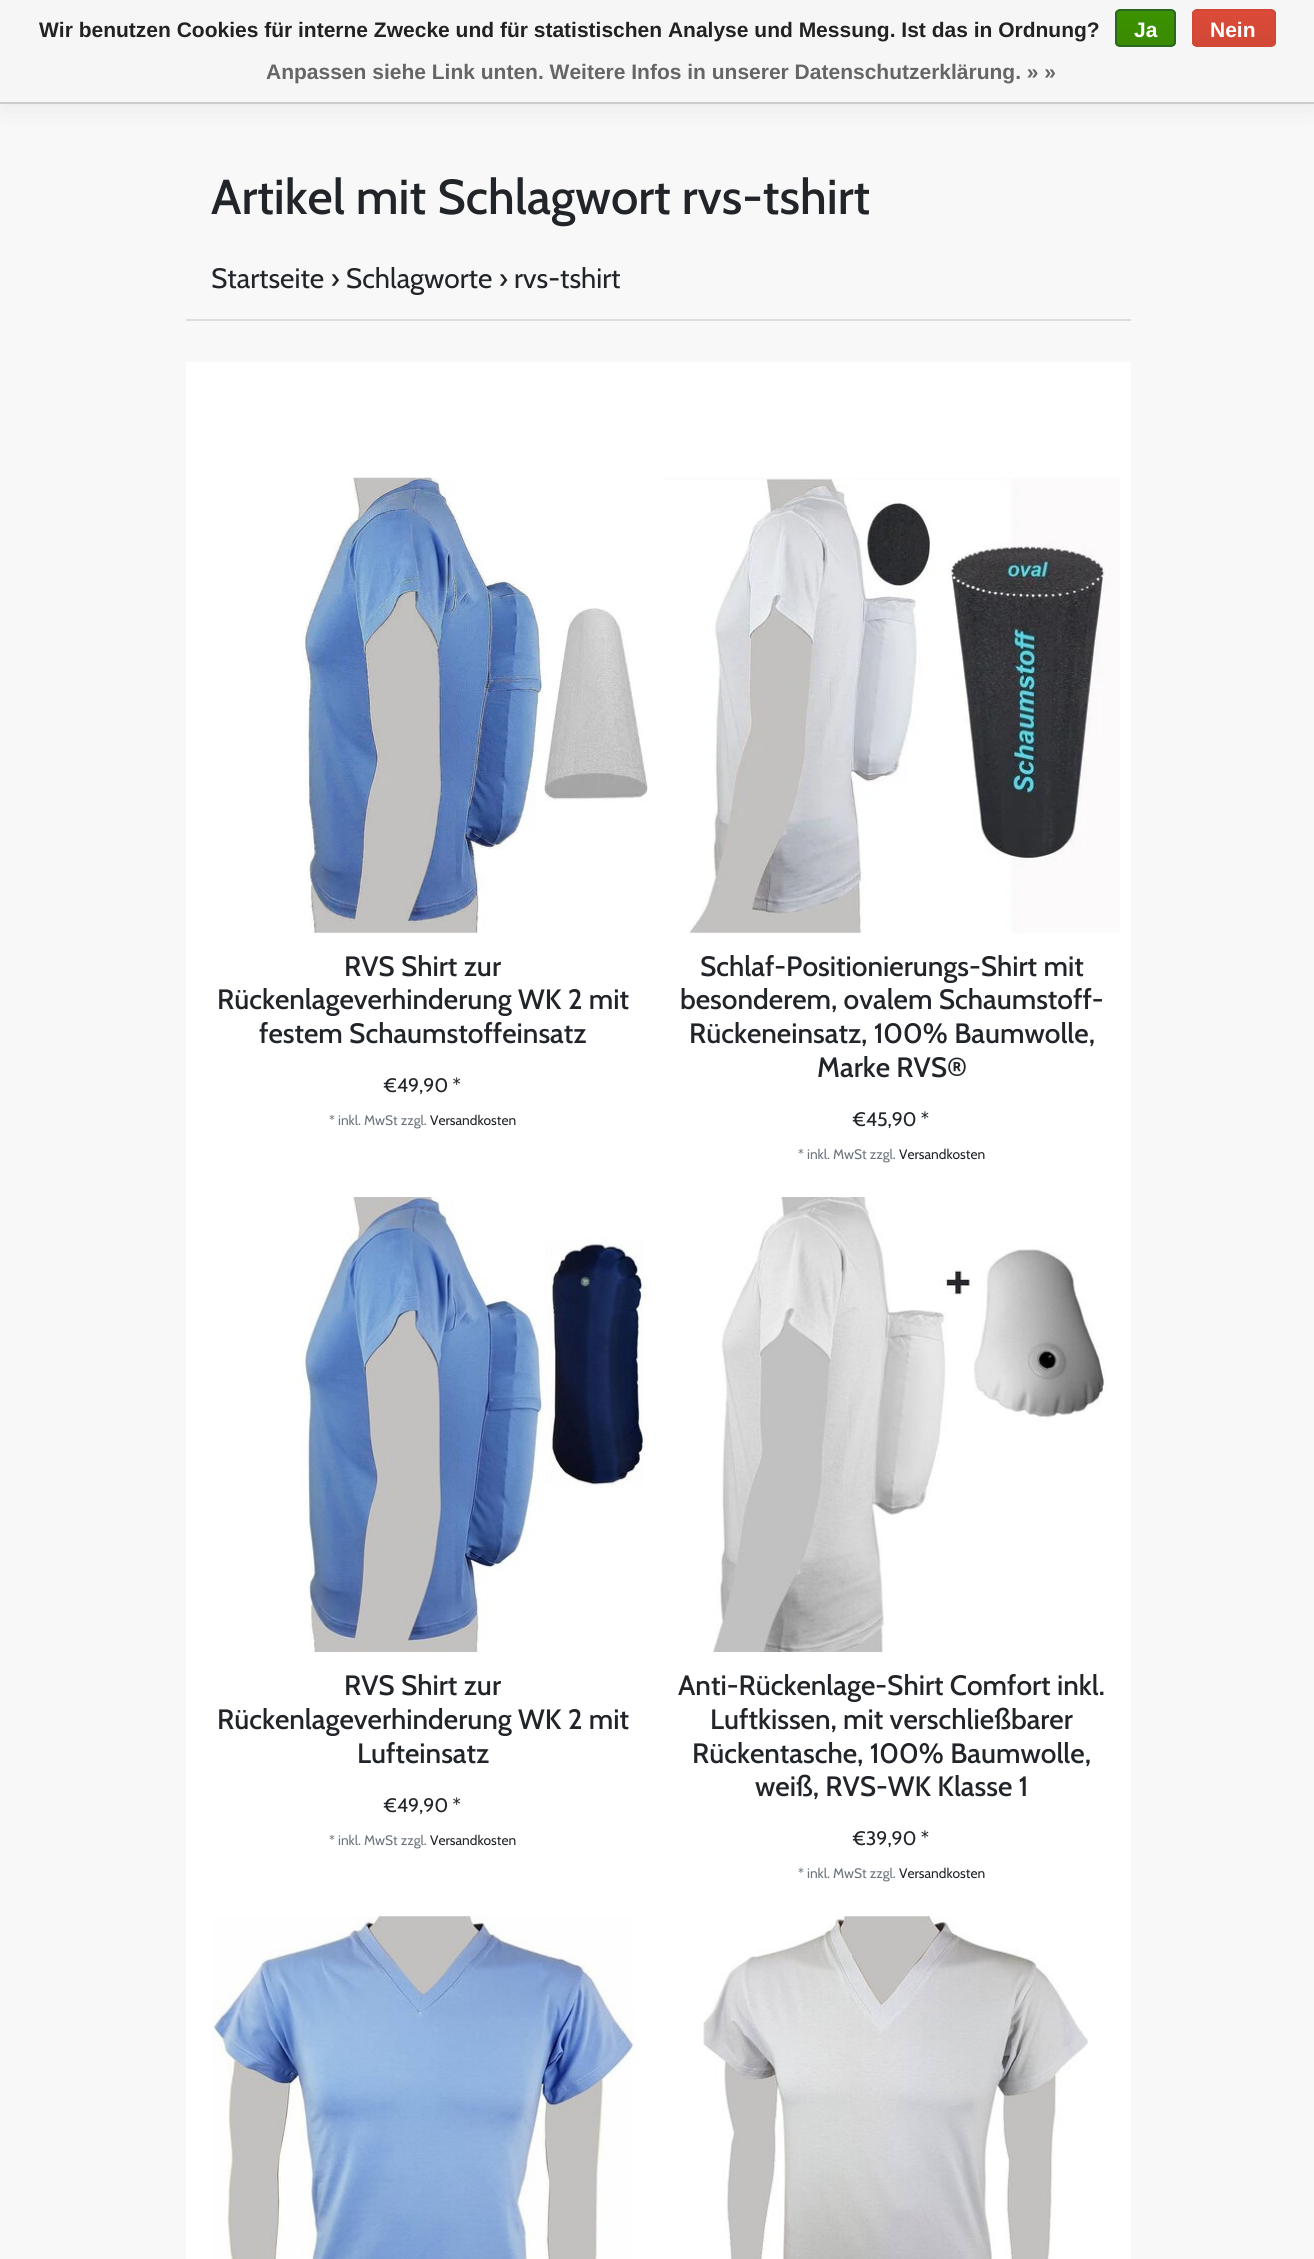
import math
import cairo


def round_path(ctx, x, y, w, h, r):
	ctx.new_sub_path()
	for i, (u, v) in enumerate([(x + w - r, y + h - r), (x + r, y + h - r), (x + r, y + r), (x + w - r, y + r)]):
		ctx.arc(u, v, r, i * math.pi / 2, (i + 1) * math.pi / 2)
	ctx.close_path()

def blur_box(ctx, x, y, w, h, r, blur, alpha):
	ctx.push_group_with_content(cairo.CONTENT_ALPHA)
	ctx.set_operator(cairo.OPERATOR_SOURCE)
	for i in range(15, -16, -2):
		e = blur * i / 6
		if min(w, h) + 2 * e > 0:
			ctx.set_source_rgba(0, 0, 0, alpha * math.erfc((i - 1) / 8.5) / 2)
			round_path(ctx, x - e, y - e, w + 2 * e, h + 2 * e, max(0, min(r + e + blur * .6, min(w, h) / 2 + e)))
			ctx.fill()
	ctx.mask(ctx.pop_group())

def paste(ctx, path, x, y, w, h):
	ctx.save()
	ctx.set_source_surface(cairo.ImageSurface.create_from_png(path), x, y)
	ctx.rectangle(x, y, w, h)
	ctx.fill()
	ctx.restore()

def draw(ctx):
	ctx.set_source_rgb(0.969, 0.969, 0.969)
	ctx.paint()
	ctx.set_source_rgb(0, 0, 0)
	blur_box(ctx, 0, 11, 1314, 87, 0, 17.5, 0.1)
	ctx.set_source_rgb(0.961, 0.961, 0.961)
	ctx.rectangle(0, 0, 1314, 102)
	ctx.fill()
	ctx.set_source_rgb(0.8, 0.8, 0.8)
	ctx.rectangle(0, 102, 1314, 2)
	ctx.fill()
	ctx.select_font_face('Liberation Sans', cairo.FONT_SLANT_NORMAL, cairo.FONT_WEIGHT_BOLD)
	ctx.set_font_size(21)
	ctx.set_source_rgb(0.133, 0.133, 0.133)
	ctx.move_to(39, 37)
	ctx.show_text('Wir benutzen Cookies für interne Zwecke und für statistischen Analyse und Messung. Ist das in Ordnung?')
	ctx.save()
	round_path(ctx, 1115, 9, 61, 38, 5)
	ctx.clip()
	gradient = cairo.LinearGradient(1145, 10, 1145, 46)
	gradient.add_color_stop_rgba(0, 0.235, 0.576, 0, 1)
	gradient.add_color_stop_rgba(1, 0.224, 0.541, 0, 1)
	ctx.set_source(gradient)
	ctx.rectangle(1115, 11, 61, 35)
	ctx.fill()
	ctx.restore()
	round_path(ctx, 1116, 10, 59, 36, 4)
	ctx.set_source_rgb(0.161, 0.412, 0.114)
	ctx.stroke()
	ctx.set_source_rgb(1, 1, 1)
	ctx.move_to(1134, 37)
	ctx.show_text('Ja')
	ctx.save()
	round_path(ctx, 1192, 9, 84, 38, 5)
	ctx.clip()
	gradient = cairo.LinearGradient(1234, 10, 1234, 46)
	gradient.add_color_stop_rgba(0, 0.863, 0.29, 0.22, 1)
	gradient.add_color_stop_rgba(1, 0.82, 0.282, 0.212, 1)
	ctx.set_source(gradient)
	ctx.rectangle(1192, 11, 84, 35)
	ctx.fill()
	ctx.restore()
	round_path(ctx, 1193, 10, 82, 36, 4)
	ctx.set_source_rgb(0.82, 0.282, 0.212)
	ctx.stroke()
	ctx.set_source_rgb(1, 1, 1)
	ctx.move_to(1210, 37)
	ctx.show_text('Nein')
	ctx.set_source_rgb(0.4, 0.4, 0.4)
	ctx.move_to(266, 79)
	ctx.show_text('Anpassen siehe Link unten. Weitere Infos in unserer Datenschutzerklärung. » »')
	ctx.set_source_rgb(0.871, 0.871, 0.871)
	ctx.rectangle(186, 319, 945, 2)
	ctx.fill()
	ctx.select_font_face('Cabin Medium')
	ctx.set_font_size(49)
	ctx.set_source_rgb(0.129, 0.145, 0.161)
	ctx.move_to(211, 214)
	ctx.show_text('Artikel mit Schlagwort rvs-tshirt')
	ctx.select_font_face('Cabin')
	ctx.set_font_size(28)
	ctx.move_to(211, 288)
	ctx.show_text('Startseite › Schlagworte › rvs-tshirt')
	ctx.set_source_rgb(1, 1, 1)
	ctx.rectangle(186, 362, 945, 1897)
	ctx.fill()
	paste(ctx, 'media/1.png', 301, 477, 348, 456)
	ctx.select_font_face('Cabin Medium')
	ctx.set_source_rgb(0.129, 0.145, 0.161)
	for x, y, s in [
		(344, 976, 'RVS Shirt zur'),
		(217, 1009, 'Rückenlageverhinderung WK 2 mit'),
		(259, 1043, 'festem Schaumstoffeinsatz'),
	]:
		ctx.move_to(x, y)
		ctx.show_text(s)
	ctx.select_font_face('Cabin')
	ctx.set_font_size(19.5)
	ctx.move_to(384, 1092)
	ctx.show_text('€49,90 *')
	ctx.set_font_size(13.75)
	ctx.set_source_rgb(0.424, 0.459, 0.49)
	ctx.move_to(329, 1125)
	ctx.show_text('* inkl. MwSt zzgl.')
	ctx.set_source_rgb(0.129, 0.145, 0.161)
	ctx.move_to(430, 1125)
	ctx.show_text('Versandkosten')
	paste(ctx, 'media/2.png', 665, 477, 455, 456)
	ctx.select_font_face('Cabin Medium')
	ctx.set_font_size(28)
	for x, y, s in [
		(700, 976, 'Schlaf-Positionierungs-Shirt mit'),
		(680, 1009, 'besonderem, ovalem Schaumstoff-'),
		(689, 1043, 'Rückeneinsatz, 100% Baumwolle,'),
		(817, 1077, 'Marke RVS®'),
	]:
		ctx.move_to(x, y)
		ctx.show_text(s)
	ctx.select_font_face('Cabin')
	ctx.set_font_size(19.5)
	ctx.move_to(853, 1126)
	ctx.show_text('€45,90 *')
	ctx.set_font_size(13.75)
	ctx.set_source_rgb(0.424, 0.459, 0.49)
	ctx.move_to(798, 1159)
	ctx.show_text('* inkl. MwSt zzgl.')
	ctx.set_source_rgb(0.129, 0.145, 0.161)
	ctx.move_to(899, 1159)
	ctx.show_text('Versandkosten')
	paste(ctx, 'media/3.png', 296, 1197, 353, 455)
	ctx.select_font_face('Cabin Medium')
	ctx.set_font_size(28)
	for x, y, s in [
		(344, 1695, 'RVS Shirt zur'),
		(217, 1729, 'Rückenlageverhinderung WK 2 mit'),
		(357, 1763, 'Lufteinsatz'),
	]:
		ctx.move_to(x, y)
		ctx.show_text(s)
	ctx.select_font_face('Cabin')
	ctx.set_font_size(19.5)
	ctx.move_to(384, 1812)
	ctx.show_text('€49,90 *')
	ctx.set_font_size(13.75)
	ctx.set_source_rgb(0.424, 0.459, 0.49)
	ctx.move_to(329, 1845)
	ctx.show_text('* inkl. MwSt zzgl.')
	ctx.set_source_rgb(0.129, 0.145, 0.161)
	ctx.move_to(430, 1845)
	ctx.show_text('Versandkosten')
	paste(ctx, 'media/4.png', 713, 1197, 394, 455)
	ctx.select_font_face('Cabin Medium')
	ctx.set_font_size(28)
	for x, y, s in [
		(678, 1695, 'Anti-Rückenlage-Shirt Comfort inkl.'),
		(710, 1729, 'Luftkissen, mit verschließbarer'),
		(692, 1763, 'Rückentasche, 100% Baumwolle,'),
		(755, 1796, 'weiß, RVS-WK Klasse 1'),
	]:
		ctx.move_to(x, y)
		ctx.show_text(s)
	ctx.select_font_face('Cabin')
	ctx.set_font_size(19.5)
	ctx.move_to(853, 1845)
	ctx.show_text('€39,90 *')
	ctx.set_font_size(13.75)
	ctx.set_source_rgb(0.424, 0.459, 0.49)
	ctx.move_to(798, 1878)
	ctx.show_text('* inkl. MwSt zzgl.')
	ctx.set_source_rgb(0.129, 0.145, 0.161)
	ctx.move_to(899, 1878)
	ctx.show_text('Versandkosten')
	paste(ctx, 'media/5.png', 212, 1916, 422, 343)
	paste(ctx, 'media/6.png', 703, 1916, 386, 343)


surface = cairo.ImageSurface(cairo.FORMAT_RGB24, 1314, 2259)
ctx = cairo.Context(surface)
options = cairo.FontOptions()
options.set_hint_metrics(cairo.HINT_METRICS_OFF)
options.set_hint_style(cairo.HINT_STYLE_NONE)
ctx.set_font_options(options)
ctx.set_miter_limit(4)
draw(ctx)
surface.write_to_png('image.png')
